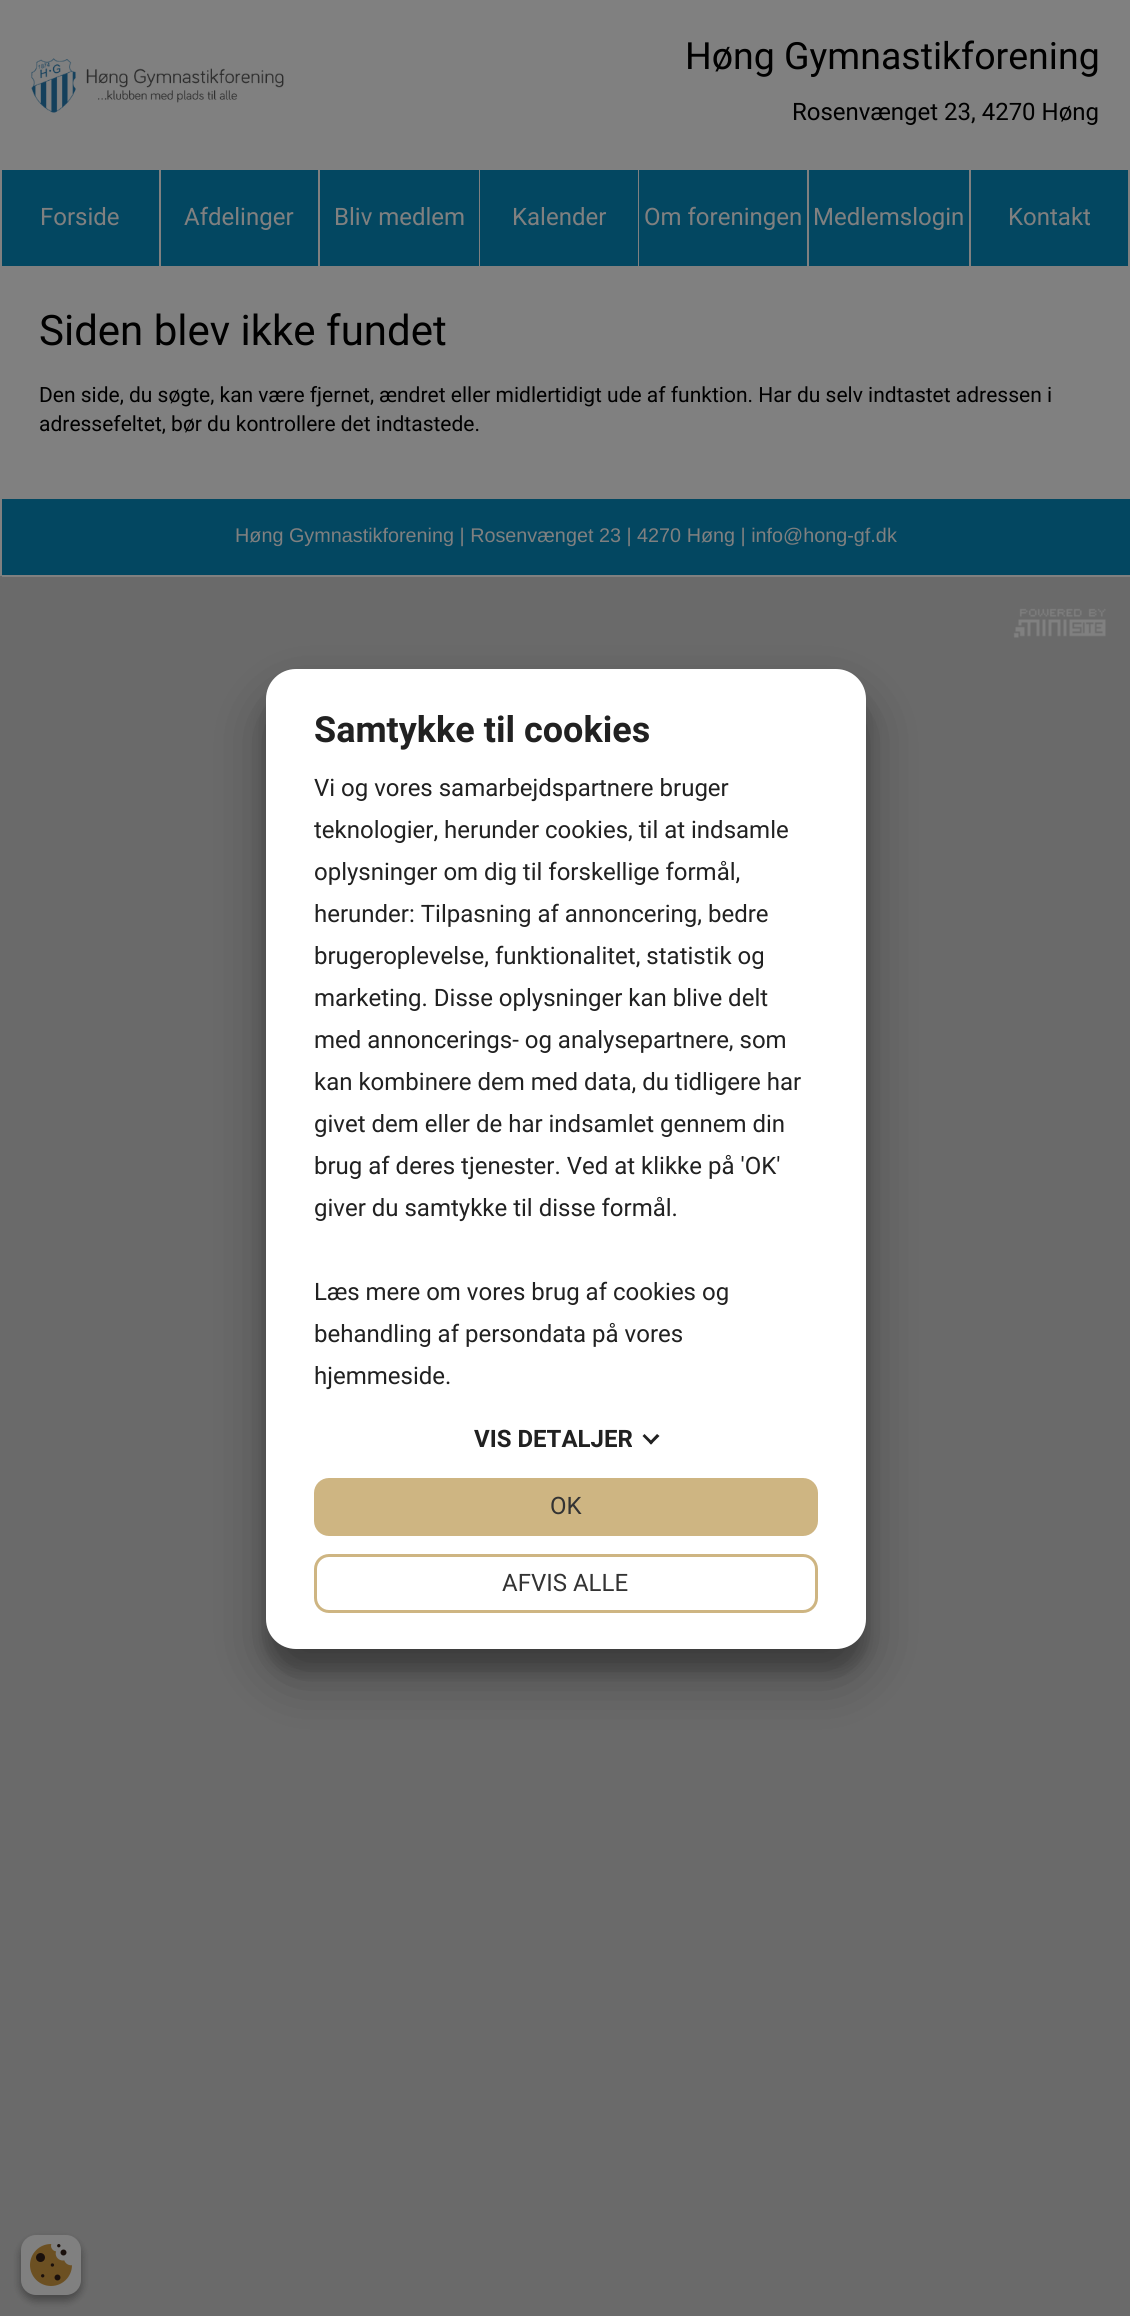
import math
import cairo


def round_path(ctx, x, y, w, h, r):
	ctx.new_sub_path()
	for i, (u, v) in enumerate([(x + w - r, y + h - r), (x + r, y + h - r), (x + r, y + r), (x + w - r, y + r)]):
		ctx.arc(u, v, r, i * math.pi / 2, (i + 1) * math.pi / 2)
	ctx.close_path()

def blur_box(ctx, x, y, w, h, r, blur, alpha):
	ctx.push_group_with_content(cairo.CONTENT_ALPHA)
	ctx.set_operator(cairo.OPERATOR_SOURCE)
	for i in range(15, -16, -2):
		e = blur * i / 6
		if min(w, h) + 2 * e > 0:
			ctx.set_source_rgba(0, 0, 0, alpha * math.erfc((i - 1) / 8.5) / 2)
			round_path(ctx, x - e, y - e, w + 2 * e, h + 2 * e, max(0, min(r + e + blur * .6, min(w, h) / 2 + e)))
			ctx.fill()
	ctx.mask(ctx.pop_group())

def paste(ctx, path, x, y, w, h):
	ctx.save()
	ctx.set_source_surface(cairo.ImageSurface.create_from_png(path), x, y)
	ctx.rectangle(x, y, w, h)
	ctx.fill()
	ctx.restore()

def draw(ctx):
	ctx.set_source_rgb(0.416, 0.416, 0.416)
	ctx.paint()
	ctx.set_source_rgb(0.502, 0.502, 0.502)
	ctx.rectangle(0, 0, 1130, 576)
	ctx.fill()
	ctx.rectangle(2, 576, 1128, 1)
	ctx.fill()
	paste(ctx, 'media/1.png', 31, 58, 253, 55)
	ctx.select_font_face('Roboto')
	ctx.set_font_size(37.5)
	ctx.set_source_rgb(0, 0, 0)
	ctx.move_to(685, 69)
	ctx.show_text('Høng Gymnastikforening')
	ctx.set_font_size(24)
	ctx.move_to(792, 120)
	ctx.show_text('Rosenvænget 23, 4270 Høng')
	ctx.set_source_rgb(0.012, 0.278, 0.38)
	ctx.rectangle(2, 170, 1126, 96)
	ctx.fill()
	ctx.set_source_rgb(0.502, 0.502, 0.502)
	ctx.rectangle(159, 170, 2, 96)
	ctx.fill()
	ctx.move_to(40, 225)
	ctx.show_text('Forside')
	ctx.rectangle(318, 170, 2, 96)
	ctx.fill()
	ctx.move_to(184, 225)
	ctx.show_text('Afdelinger')
	ctx.rectangle(479, 170, 1, 96)
	ctx.fill()
	ctx.move_to(334, 225)
	ctx.show_text('Bliv medlem')
	ctx.rectangle(638, 170, 1, 96)
	ctx.fill()
	ctx.move_to(512, 225)
	ctx.show_text('Kalender')
	ctx.rectangle(807, 170, 2, 96)
	ctx.fill()
	ctx.move_to(644, 225)
	ctx.show_text('Om foreningen')
	ctx.rectangle(969, 170, 2, 96)
	ctx.fill()
	ctx.move_to(813, 225)
	ctx.show_text('Medlemslogin')
	ctx.move_to(1008, 225)
	ctx.show_text('Kontakt')
	ctx.set_font_size(42)
	ctx.set_source_rgb(0, 0, 0)
	ctx.move_to(39, 345)
	ctx.show_text('Siden blev ikke fundet')
	ctx.set_font_size(21)
	ctx.move_to(39, 402)
	ctx.show_text('Den side, du søgte, kan være fjernet, ændret eller midlertidigt ude af funktion. Har du selv indtastet adressen i')
	ctx.move_to(39, 431)
	ctx.show_text('adressefeltet, bør du kontrollere det indtastede.')
	ctx.set_source_rgb(0.012, 0.278, 0.38)
	ctx.rectangle(2, 499, 1128, 76)
	ctx.fill()
	ctx.select_font_face('Liberation Sans')
	ctx.set_font_size(19.8)
	ctx.set_source_rgb(0.502, 0.502, 0.502)
	ctx.move_to(235, 542)
	ctx.show_text('Høng Gymnastikforening | Rosenvænget 23 | 4270 Høng | info@hong-gf.dk')
	paste(ctx, 'media/2.png', 1013, 608, 93, 30)
	ctx.set_source_rgb(0, 0, 0)
	blur_box(ctx, 266, 692, 600, 979, 30, 9, 0.22)
	blur_box(ctx, 266, 698, 600, 979, 30, 28.5, 0.3)
	ctx.set_source_rgb(1, 1, 1)
	round_path(ctx, 266, 669, 600, 980, 30)
	ctx.fill()
	ctx.select_font_face('Roboto', cairo.FONT_SLANT_NORMAL, cairo.FONT_WEIGHT_BOLD)
	ctx.set_font_size(36)
	ctx.set_source_rgb(0.129, 0.129, 0.129)
	ctx.move_to(314, 742)
	ctx.show_text('Samtykke til cookies')
	ctx.select_font_face('Roboto')
	ctx.set_font_size(24)
	for x, y, s in [
		(314, 796, 'Vi og vores samarbejdspartnere bruger'),
		(314, 838, 'teknologier, herunder cookies, til at indsamle'),
		(314, 880, 'oplysninger om dig til forskellige formål,'),
		(314, 922, 'herunder: Tilpasning af annoncering, bedre'),
		(314, 964, 'brugeroplevelse, funktionalitet, statistik og'),
		(314, 1006, 'marketing. Disse oplysninger kan blive delt'),
		(314, 1048, 'med annoncerings- og analysepartnere, som'),
		(314, 1090, 'kan kombinere dem med data, du tidligere har'),
		(314, 1132, 'givet dem eller de har indsamlet gennem din'),
		(314, 1174, 'brug af deres tjenester. Ved at klikke på \'OK\''),
		(314, 1216, 'giver du samtykke til disse formål.'),
		(314, 1300, 'Læs mere om vores brug af cookies og'),
		(314, 1342, 'behandling af persondata på vores'),
		(314, 1384, 'hjemmeside.'),
	]:
		ctx.move_to(x, y)
		ctx.show_text(s)
	ctx.select_font_face('Roboto', cairo.FONT_SLANT_NORMAL, cairo.FONT_WEIGHT_BOLD)
	ctx.move_to(474, 1447)
	ctx.show_text('VIS DETALJER')
	ctx.new_path()
	ctx.move_to(657, 1434)
	ctx.line_to(659.5, 1436)
	ctx.line_to(651, 1444.5)
	ctx.line_to(649, 1442.5)
	ctx.close_path()
	ctx.fill()
	ctx.new_path()
	ctx.move_to(644.5, 1434)
	ctx.line_to(653, 1442.5)
	ctx.line_to(651, 1444.5)
	ctx.line_to(642.5, 1436)
	ctx.close_path()
	ctx.fill()
	ctx.set_source_rgb(0.808, 0.71, 0.51)
	round_path(ctx, 315.5, 1479.5, 501, 55, 13.5)
	ctx.fill_preserve()
	ctx.set_line_width(3)
	ctx.stroke()
	ctx.select_font_face('Roboto')
	ctx.set_source_rgb(0.2, 0.2, 0.2)
	ctx.move_to(550, 1514)
	ctx.show_text('OK')
	round_path(ctx, 315.5, 1555.5, 501, 56, 13.5)
	ctx.set_source_rgb(0.808, 0.71, 0.51)
	ctx.stroke()
	ctx.set_source_rgb(0.2, 0.2, 0.2)
	ctx.move_to(502, 1591)
	ctx.show_text('AFVIS ALLE')
	ctx.set_source_rgb(0, 0, 0)
	blur_box(ctx, 21, 2240, 60, 60, 15, 4.5, 0.23)
	blur_box(ctx, 21, 2240, 60, 60, 15, 4.5, 0.16)
	ctx.set_source_rgb(0.502, 0.502, 0.502)
	round_path(ctx, 21, 2235, 60, 60, 15)
	ctx.fill()
	paste(ctx, 'media/3.png', 30, 2244, 42, 42)


surface = cairo.ImageSurface(cairo.FORMAT_RGB24, 1130, 2316)
ctx = cairo.Context(surface)
options = cairo.FontOptions()
options.set_hint_metrics(cairo.HINT_METRICS_OFF)
options.set_hint_style(cairo.HINT_STYLE_NONE)
ctx.set_font_options(options)
ctx.set_miter_limit(4)
draw(ctx)
surface.write_to_png('image.png')
